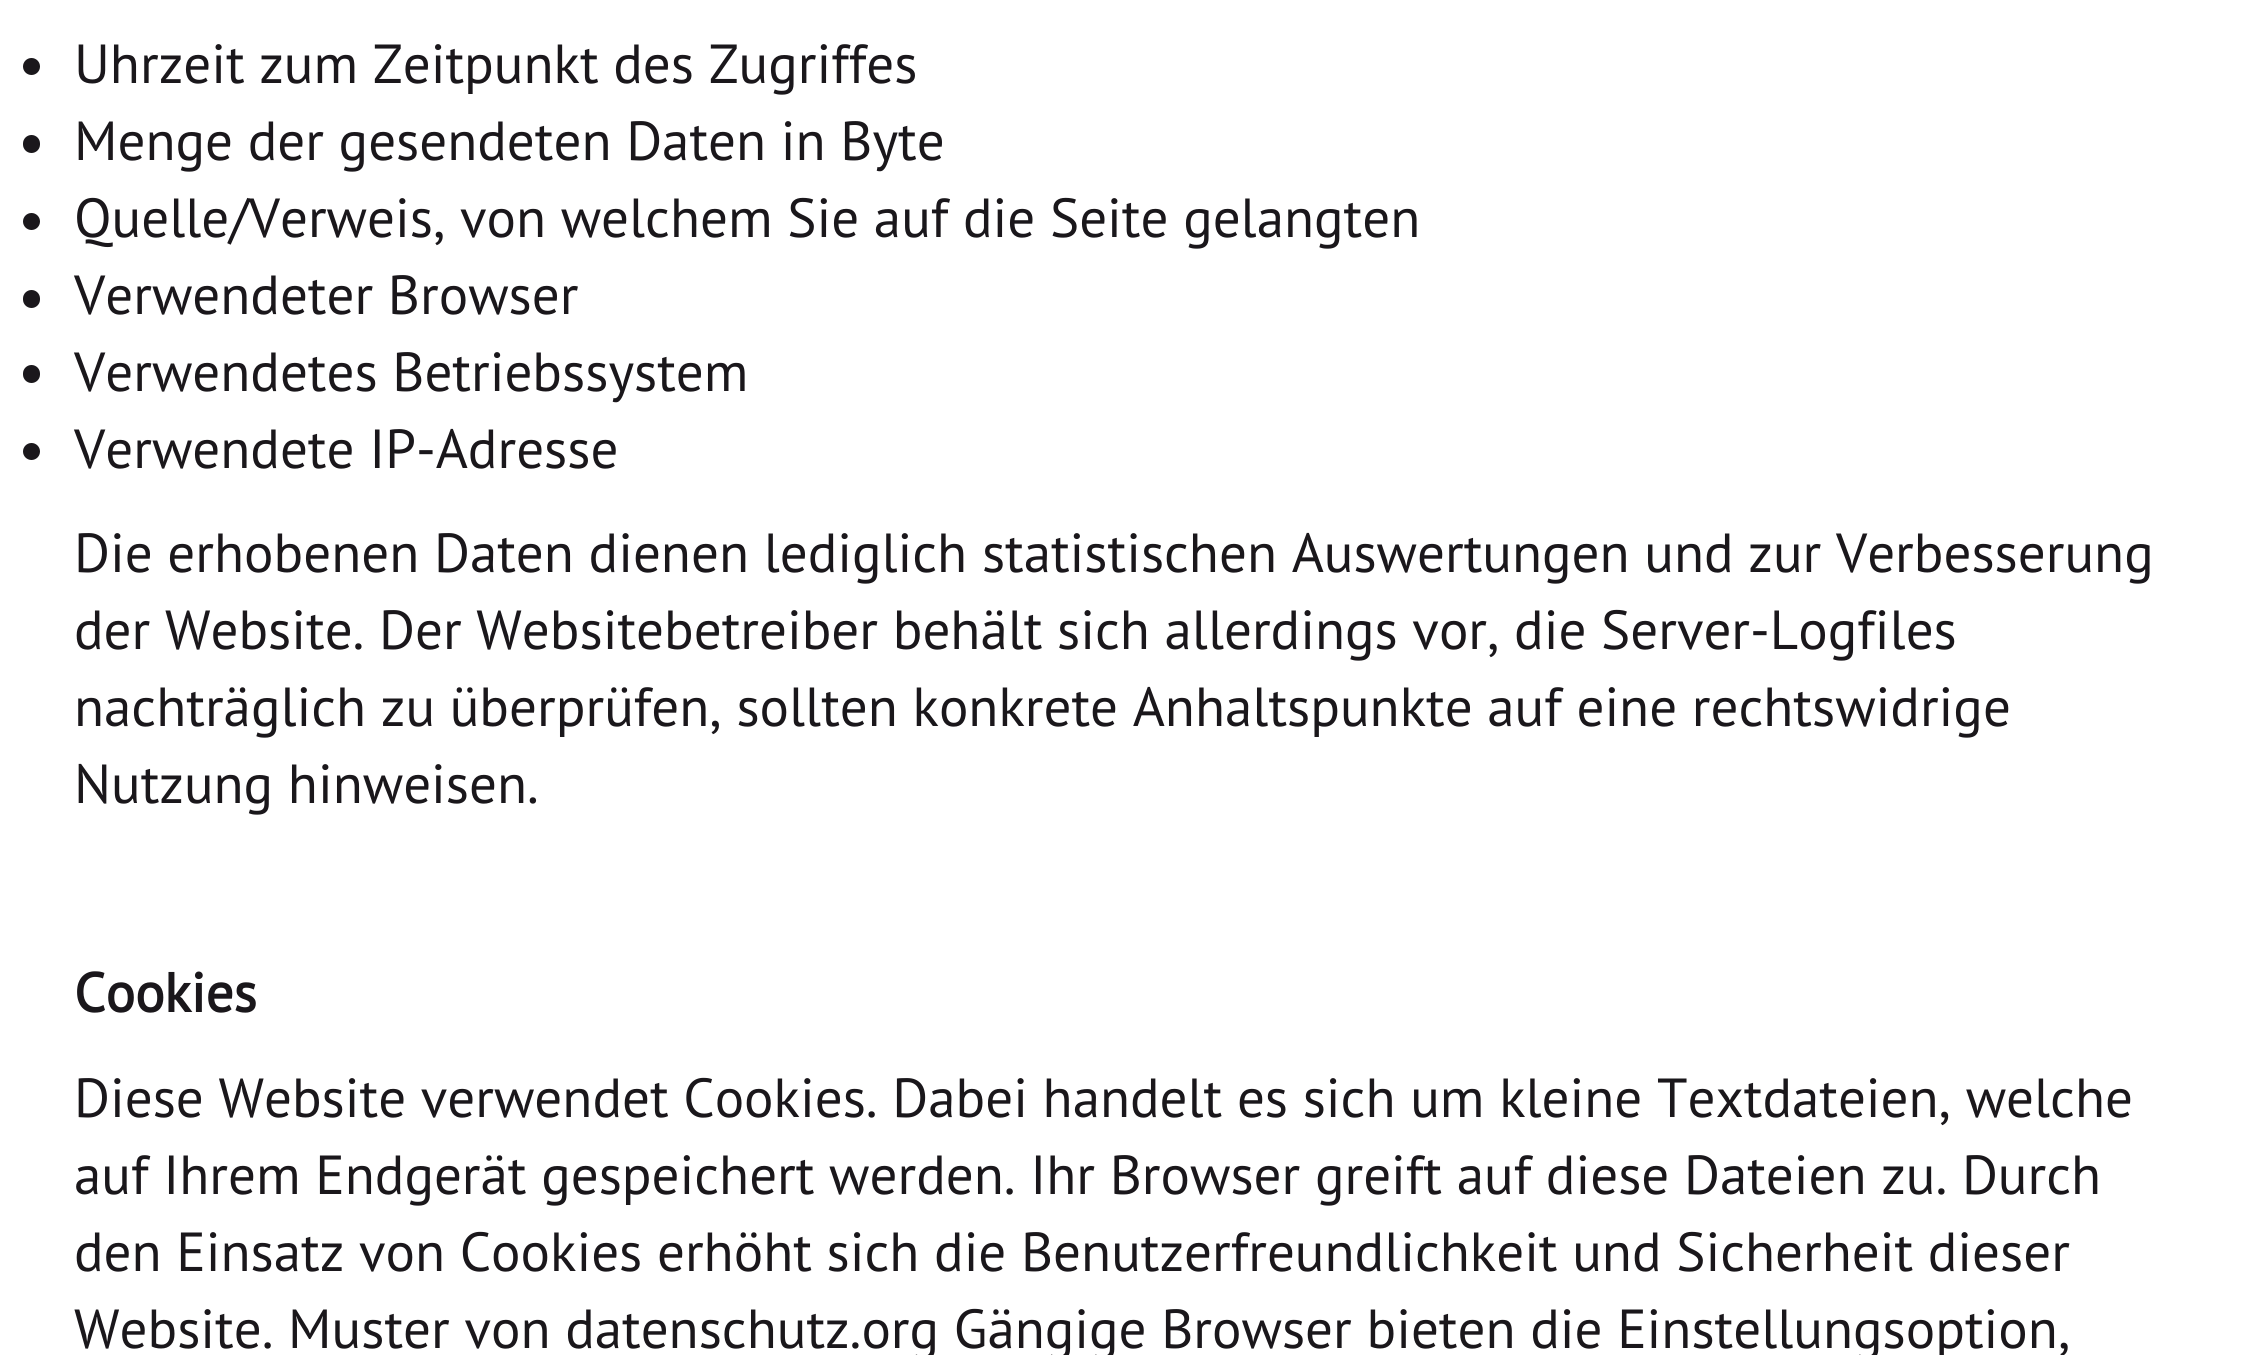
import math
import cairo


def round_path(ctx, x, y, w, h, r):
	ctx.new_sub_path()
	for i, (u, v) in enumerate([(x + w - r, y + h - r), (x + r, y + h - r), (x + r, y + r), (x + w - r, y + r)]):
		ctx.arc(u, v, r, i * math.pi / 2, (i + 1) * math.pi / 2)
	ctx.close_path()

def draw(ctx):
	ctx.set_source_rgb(1, 1, 1)
	ctx.paint()
	ctx.set_source_rgb(0.102, 0.09, 0.106)
	ctx.arc(31.5, 66.5, 8.5, 0, 2 * math.pi)
	ctx.fill()
	ctx.select_font_face('PT Sans')
	ctx.set_font_size(55)
	ctx.move_to(74, 83)
	ctx.show_text('Uhrzeit zum Zeitpunkt des Zugriffes')
	round_path(ctx, 23, 135, 17, 18, 8.5)
	ctx.fill()
	ctx.move_to(74, 160)
	ctx.show_text('Menge der gesendeten Daten in Byte')
	ctx.new_path()
	ctx.arc(31.5, 221.5, 8.5, 0, 2 * math.pi)
	ctx.fill()
	ctx.move_to(74, 237)
	ctx.show_text('Quelle/Verweis, von welchem Sie auf die Seite gelangten')
	round_path(ctx, 23, 290, 17, 18, 8.5)
	ctx.fill()
	ctx.move_to(74, 314)
	ctx.show_text('Verwendeter Browser')
	round_path(ctx, 23, 365, 17, 18, 8.5)
	ctx.fill()
	ctx.move_to(74, 391)
	ctx.show_text('Verwendetes Betriebssystem')
	ctx.new_path()
	ctx.arc(31.5, 451.5, 8.5, 0, 2 * math.pi)
	ctx.fill()
	for x, y, s in [
		(74, 468, 'Verwendete IP-Adresse'),
		(74, 572, 'Die erhobenen Daten dienen lediglich statistischen Auswertungen und zur Verbesserung'),
		(74, 649, 'der Website. Der Websitebetreiber behält sich allerdings vor, die Server-Logfiles'),
		(74, 726, 'nachträglich zu überprüfen, sollten konkrete Anhaltspunkte auf eine rechtswidrige'),
		(74, 803, 'Nutzung hinweisen.'),
	]:
		ctx.move_to(x, y)
		ctx.show_text(s)
	ctx.select_font_face('PT Sans', cairo.FONT_SLANT_NORMAL, cairo.FONT_WEIGHT_BOLD)
	ctx.move_to(74, 1012)
	ctx.show_text('Cookies')
	ctx.select_font_face('PT Sans')
	for x, y, s in [
		(74, 1117, 'Diese Website verwendet Cookies. Dabei handelt es sich um kleine Textdateien, welche'),
		(74, 1194, 'auf Ihrem Endgerät gespeichert werden. Ihr Browser greift auf diese Dateien zu. Durch'),
		(74, 1271, 'den Einsatz von Cookies erhöht sich die Benutzerfreundlichkeit und Sicherheit dieser'),
		(74, 1348, 'Website. Muster von datenschutz.org Gängige Browser bieten die Einstellungsoption,'),
	]:
		ctx.move_to(x, y)
		ctx.show_text(s)


surface = cairo.ImageSurface(cairo.FORMAT_RGB24, 2255, 1355)
ctx = cairo.Context(surface)
options = cairo.FontOptions()
options.set_hint_metrics(cairo.HINT_METRICS_OFF)
options.set_hint_style(cairo.HINT_STYLE_NONE)
ctx.set_font_options(options)
ctx.set_miter_limit(4)
draw(ctx)
surface.write_to_png('image.png')
